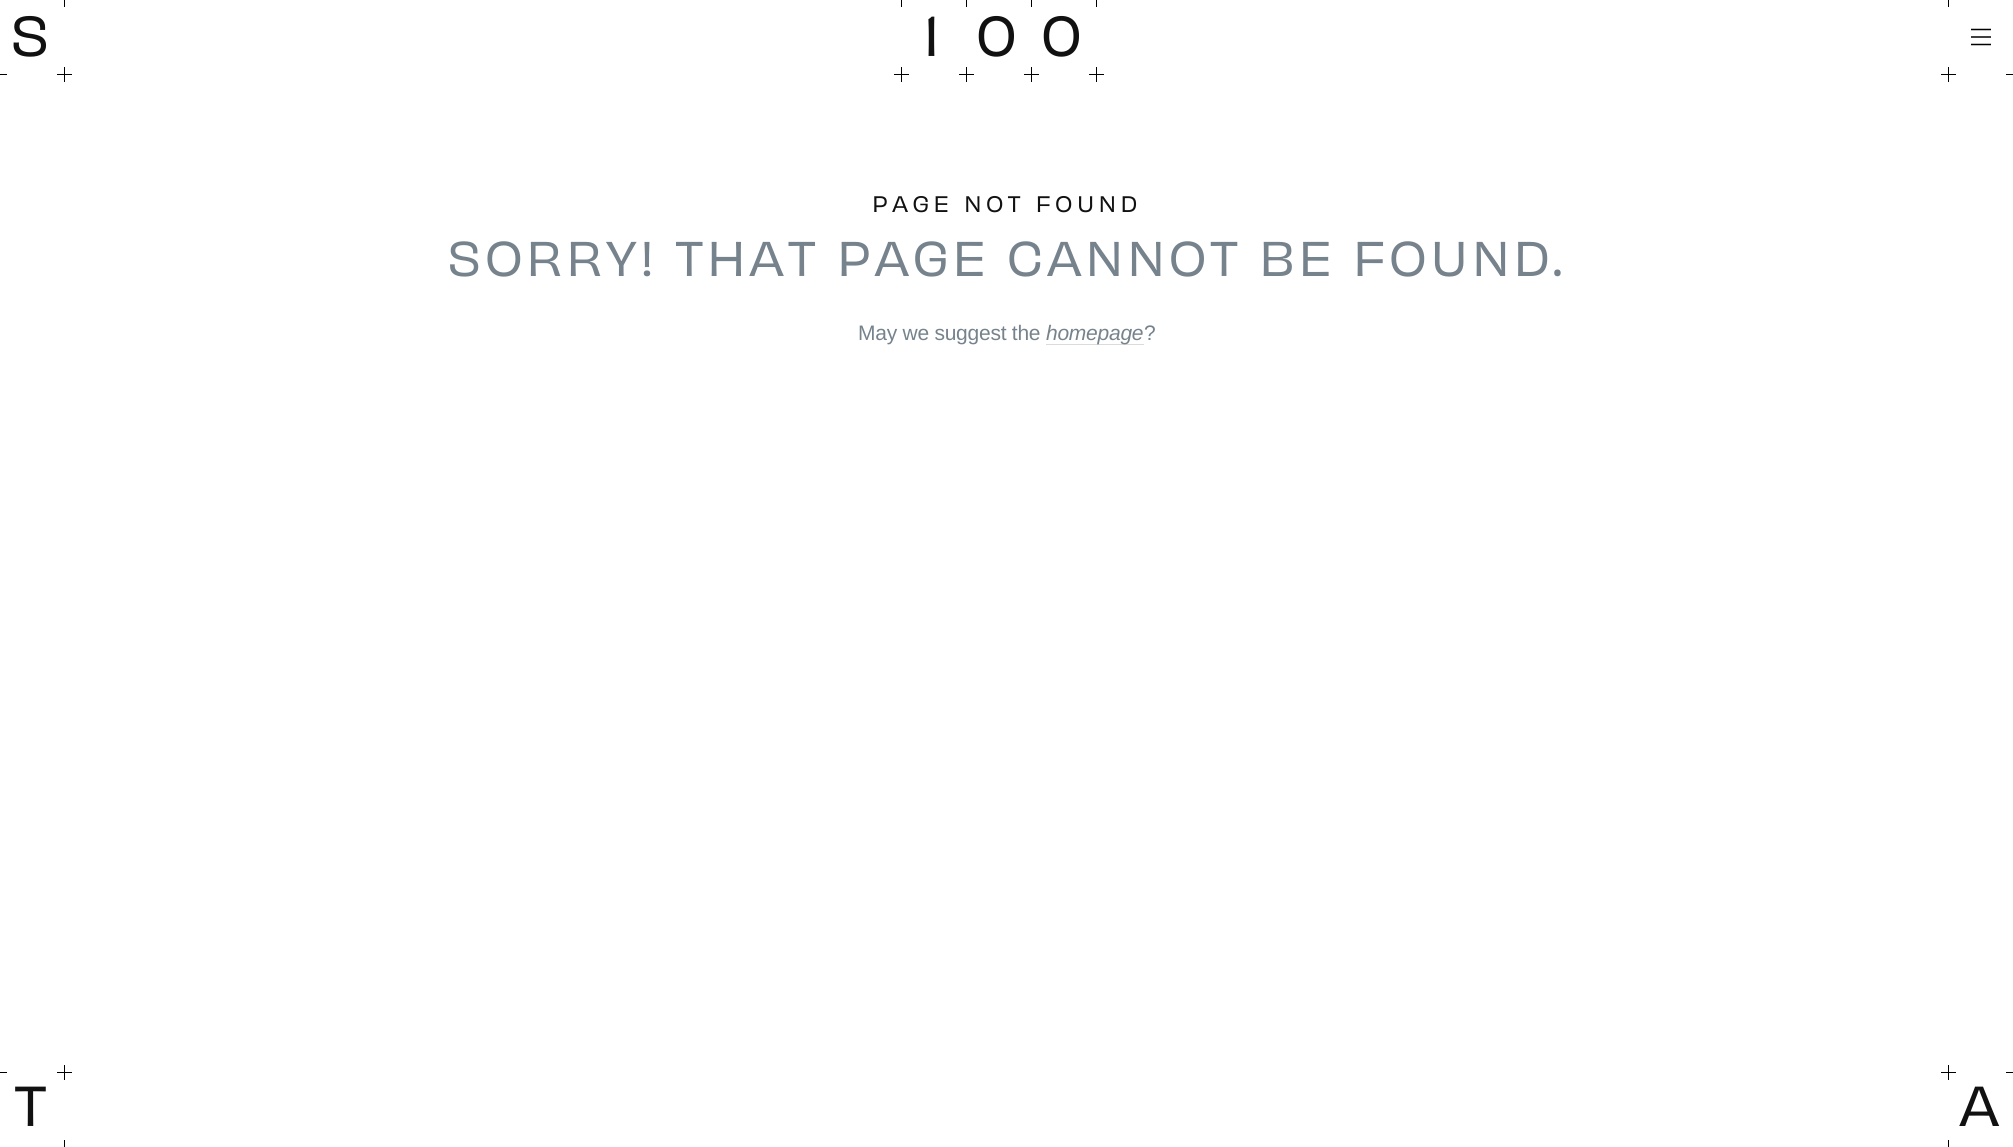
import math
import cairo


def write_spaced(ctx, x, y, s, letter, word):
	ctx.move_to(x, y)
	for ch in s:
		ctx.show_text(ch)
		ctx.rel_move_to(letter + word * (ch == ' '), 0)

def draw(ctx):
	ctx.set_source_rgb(1, 1, 1)
	ctx.paint()
	ctx.new_path()
	ctx.move_to(1971, 29.5)
	ctx.line_to(1991, 29.5)
	ctx.set_source_rgb(0, 0, 0)
	ctx.set_line_width(1.5)
	ctx.stroke()
	ctx.set_source_rgb(0.251, 0.251, 0.251)
	ctx.rectangle(1971, 36, 20, 2)
	ctx.fill()
	ctx.new_path()
	ctx.move_to(1971, 44.5)
	ctx.line_to(1991, 44.5)
	ctx.set_source_rgb(0, 0, 0)
	ctx.stroke()
	ctx.rectangle(1948, 0, 1, 7)
	ctx.rectangle(2006, 74, 7, 1)
	ctx.rectangle(1948, 67, 1, 15)
	ctx.rectangle(1941, 74, 15, 1)
	ctx.rectangle(64, 0, 1, 7)
	ctx.rectangle(64, 67, 1, 15)
	ctx.rectangle(57, 74, 15, 1)
	ctx.rectangle(0, 74, 7, 1)
	ctx.fill()
	ctx.select_font_face('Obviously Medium')
	ctx.set_font_size(52.5)
	ctx.set_source_rgb(0.067, 0.067, 0.067)
	write_spaced(ctx, 10, 56, 'S', 4, 0)
	ctx.set_source_rgb(0, 0, 0)
	ctx.rectangle(64, 1065, 1, 15)
	ctx.rectangle(57, 1072, 15, 1)
	ctx.rectangle(0, 1072, 7, 1)
	ctx.rectangle(64, 1140, 1, 7)
	ctx.fill()
	ctx.set_source_rgb(0.067, 0.067, 0.067)
	write_spaced(ctx, 14, 1126, 'T', 4, 0)
	ctx.set_source_rgb(0, 0, 0)
	ctx.rectangle(2006, 1072, 7, 1)
	ctx.rectangle(1948, 1065, 1, 15)
	ctx.rectangle(1941, 1072, 15, 1)
	ctx.rectangle(1948, 1140, 1, 7)
	ctx.fill()
	ctx.set_source_rgb(0.067, 0.067, 0.067)
	write_spaced(ctx, 1959, 1126, 'A', 4, 0)
	ctx.set_source_rgb(0, 0, 0)
	ctx.rectangle(966, 0, 1, 7)
	ctx.rectangle(901, 0, 1, 7)
	ctx.rectangle(966, 67, 1, 15)
	ctx.rectangle(959, 74, 15, 1)
	ctx.rectangle(901, 67, 1, 15)
	ctx.rectangle(894, 74, 15, 1)
	ctx.fill()
	ctx.set_source_rgb(0.067, 0.067, 0.067)
	write_spaced(ctx, 923, 56, '1', 4, 0)
	ctx.set_source_rgb(0, 0, 0)
	ctx.rectangle(1031, 0, 1, 7)
	ctx.rectangle(1031, 67, 1, 15)
	ctx.rectangle(1024, 74, 15, 1)
	ctx.fill()
	ctx.set_source_rgb(0.067, 0.067, 0.067)
	write_spaced(ctx, 976, 56, '0 0', 4, 0)
	ctx.set_source_rgb(0, 0, 0)
	ctx.rectangle(1096, 0, 1, 7)
	ctx.rectangle(1096, 67, 1, 15)
	ctx.rectangle(1089, 74, 15, 1)
	ctx.fill()
	ctx.set_font_size(21)
	ctx.set_source_rgb(0.067, 0.067, 0.067)
	write_spaced(ctx, 872, 212, 'PAGE NOT FOUND', 4.25, 0)
	ctx.set_font_size(45.5)
	ctx.set_source_rgb(0.463, 0.514, 0.549)
	write_spaced(ctx, 447, 276, 'SORRY! THAT PAGE CANNOT BE FOUND.', 3.4, 0)
	ctx.select_font_face('Liberation Sans')
	ctx.set_font_size(21)
	write_spaced(ctx, 858, 340, 'May we suggest the', -0.25, 0)
	ctx.set_source_rgb(0.859, 0.859, 0.859)
	ctx.rectangle(1046, 344, 98, 1)
	ctx.fill()
	ctx.select_font_face('Liberation Sans', cairo.FONT_SLANT_ITALIC)
	ctx.set_source_rgb(0.463, 0.514, 0.549)
	write_spaced(ctx, 1046, 340, 'homepage', -0.25, 0)
	ctx.select_font_face('Liberation Sans')
	write_spaced(ctx, 1144, 340, '?', -0.25, 0)


surface = cairo.ImageSurface(cairo.FORMAT_RGB24, 2013, 1147)
ctx = cairo.Context(surface)
options = cairo.FontOptions()
options.set_hint_metrics(cairo.HINT_METRICS_OFF)
options.set_hint_style(cairo.HINT_STYLE_NONE)
ctx.set_font_options(options)
ctx.set_miter_limit(4)
draw(ctx)
surface.write_to_png('image.png')
